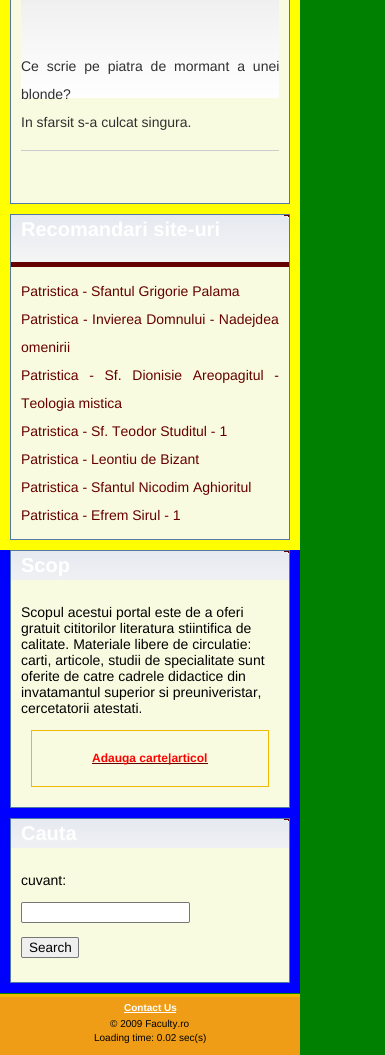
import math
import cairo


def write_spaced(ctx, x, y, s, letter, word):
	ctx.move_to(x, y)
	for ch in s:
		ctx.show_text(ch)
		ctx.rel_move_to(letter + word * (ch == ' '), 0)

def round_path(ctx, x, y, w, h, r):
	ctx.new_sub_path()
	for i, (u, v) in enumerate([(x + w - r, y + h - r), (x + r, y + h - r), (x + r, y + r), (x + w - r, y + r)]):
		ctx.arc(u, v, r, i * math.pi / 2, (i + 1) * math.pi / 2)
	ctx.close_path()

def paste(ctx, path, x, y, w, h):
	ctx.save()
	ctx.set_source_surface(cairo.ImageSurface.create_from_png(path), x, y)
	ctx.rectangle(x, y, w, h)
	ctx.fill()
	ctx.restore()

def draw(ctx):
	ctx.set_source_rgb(0, 0.502, 0)
	ctx.paint()
	ctx.set_source_rgb(1, 1, 0)
	ctx.rectangle(0, 0, 300, 550)
	ctx.fill()
	ctx.set_source_rgb(0.976, 0.984, 0.878)
	ctx.rectangle(10.5, -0.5, 279, 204)
	ctx.fill_preserve()
	ctx.set_source_rgb(0.314, 0.478, 0.647)
	ctx.set_line_width(1)
	ctx.stroke()
	paste(ctx, 'media/1.png', 21, 0, 258, 98)
	ctx.set_source_rgb(0.8, 0.8, 0.8)
	ctx.rectangle(21, 150, 258, 1)
	ctx.fill()
	ctx.select_font_face('Liberation Sans')
	ctx.set_font_size(14)
	ctx.set_source_rgb(0.188, 0.188, 0.188)
	write_spaced(ctx, 21, 71, 'Ce scrie pe piatra de mormant a unei', 0, 4)
	ctx.move_to(21, 99)
	ctx.show_text('blonde?')
	ctx.move_to(21, 127)
	ctx.show_text('In sfarsit s-a culcat singura.')
	ctx.set_source_rgb(0.976, 0.984, 0.878)
	ctx.rectangle(11, 267, 278, 272)
	ctx.fill()
	ctx.rectangle(10.5, 214.5, 279, 325)
	ctx.set_source_rgb(0.314, 0.478, 0.647)
	ctx.stroke()
	ctx.set_source_rgb(0.4, 0, 0)
	ctx.rectangle(11, 215, 278, 52)
	ctx.fill()
	paste(ctx, 'media/2.png', 11, 215, 278, 47)
	ctx.select_font_face('Liberation Sans', cairo.FONT_SLANT_NORMAL, cairo.FONT_WEIGHT_BOLD)
	ctx.set_font_size(20)
	ctx.set_source_rgb(1, 1, 1)
	ctx.move_to(21, 236)
	ctx.show_text('Recomandari site-uri')
	ctx.select_font_face('Liberation Sans')
	ctx.set_font_size(14)
	ctx.set_source_rgb(0.4, 0, 0)
	ctx.move_to(21, 296)
	ctx.show_text('Patristica - Sfantul Grigorie Palama')
	write_spaced(ctx, 21, 324, 'Patristica - Invierea Domnului - Nadejdea', 0, 0.5)
	ctx.move_to(21, 352)
	ctx.show_text('omenirii')
	write_spaced(ctx, 21, 380, 'Patristica - Sf. Dionisie Areopagitul -', 0, 6.75)
	for x, y, s in [
		(21, 408, 'Teologia mistica'),
		(21, 436, 'Patristica - Sf. Teodor Studitul - 1'),
		(21, 464, 'Patristica - Leontiu de Bizant'),
		(21, 492, 'Patristica - Sfantul Nicodim Aghioritul'),
		(21, 520, 'Patristica - Efrem Sirul - 1'),
	]:
		ctx.move_to(x, y)
		ctx.show_text(s)
	ctx.set_source_rgb(0, 0, 1)
	ctx.rectangle(0, 550, 300, 443)
	ctx.fill()
	ctx.set_source_rgb(0.976, 0.984, 0.878)
	ctx.rectangle(11, 580, 278, 227)
	ctx.fill()
	ctx.rectangle(10.5, 550.5, 279, 257)
	ctx.set_source_rgb(0.314, 0.478, 0.647)
	ctx.stroke()
	ctx.set_source_rgb(0.4, 0, 0)
	ctx.rectangle(284, 551, 5, 2)
	ctx.fill()
	paste(ctx, 'media/3.png', 11, 551, 278, 29)
	ctx.select_font_face('Liberation Sans', cairo.FONT_SLANT_NORMAL, cairo.FONT_WEIGHT_BOLD)
	ctx.set_font_size(20)
	ctx.set_source_rgb(1, 1, 1)
	ctx.move_to(21, 572)
	ctx.show_text('Scop')
	ctx.select_font_face('Liberation Sans')
	ctx.set_font_size(14)
	ctx.set_source_rgb(0, 0, 0)
	for x, y, s in [
		(21, 617, 'Scopul acestui portal este de a oferi'),
		(21, 633, 'gratuit cititorilor literatura stiintifica de'),
		(21, 649, 'calitate. Materiale libere de circulatie:'),
		(21, 665, 'carti, articole, studii de specialitate sunt'),
		(21, 681, 'oferite de catre cadrele didactice din'),
		(21, 697, 'invatamantul superior si preuniveristar,'),
		(21, 713, 'cercetatorii atestati.'),
	]:
		ctx.move_to(x, y)
		ctx.show_text(s)
	ctx.rectangle(31.5, 730.5, 237, 56)
	ctx.set_source_rgb(0.933, 0.729, 0.016)
	ctx.stroke()
	ctx.set_source_rgb(0.396, 0, 0)
	ctx.rectangle(92, 763, 116, 1)
	ctx.fill()
	ctx.select_font_face('Liberation Sans', cairo.FONT_SLANT_NORMAL, cairo.FONT_WEIGHT_BOLD)
	ctx.set_font_size(12)
	ctx.set_source_rgb(1, 0, 0)
	ctx.move_to(92, 762)
	ctx.show_text('Adauga carte|articol')
	ctx.set_source_rgb(0.976, 0.984, 0.878)
	ctx.rectangle(11, 848, 278, 134)
	ctx.fill()
	ctx.rectangle(10.5, 818.5, 279, 164)
	ctx.set_source_rgb(0.314, 0.478, 0.647)
	ctx.stroke()
	ctx.set_source_rgb(0.4, 0, 0)
	ctx.rectangle(284, 819, 5, 2)
	ctx.fill()
	paste(ctx, 'media/3.png', 11, 819, 278, 29)
	ctx.set_font_size(20)
	ctx.set_source_rgb(1, 1, 1)
	ctx.move_to(21, 840)
	ctx.show_text('Cauta')
	ctx.select_font_face('Liberation Sans')
	ctx.set_font_size(14)
	ctx.set_source_rgb(0, 0, 0)
	ctx.move_to(21, 885)
	ctx.show_text('cuvant:')
	ctx.set_source_rgb(1, 1, 1)
	round_path(ctx, 21.5, 902.5, 168, 20, 1.5)
	ctx.fill_preserve()
	ctx.set_source_rgb(0.463, 0.463, 0.463)
	ctx.stroke()
	ctx.set_source_rgb(0.937, 0.937, 0.937)
	round_path(ctx, 21.5, 937.5, 57, 20, 1.5)
	ctx.fill_preserve()
	ctx.set_source_rgb(0.463, 0.463, 0.463)
	ctx.stroke()
	ctx.set_font_size(13.5)
	ctx.set_source_rgb(0, 0, 0)
	ctx.move_to(29, 952)
	ctx.show_text('Search')
	ctx.set_source_rgb(0.937, 0.616, 0.086)
	ctx.rectangle(0, 997, 300, 58)
	ctx.fill()
	ctx.set_source_rgb(0.933, 0.729, 0.016)
	ctx.rectangle(0, 994, 300, 3)
	ctx.fill()
	ctx.select_font_face('Liberation Sans', cairo.FONT_SLANT_NORMAL, cairo.FONT_WEIGHT_BOLD)
	ctx.set_font_size(10)
	ctx.set_source_rgb(1, 1, 1)
	ctx.move_to(124, 1011)
	ctx.show_text('Contact Us')
	ctx.rectangle(124, 1012, 52, 1)
	ctx.fill()
	ctx.select_font_face('Liberation Sans')
	ctx.set_source_rgb(0, 0, 0)
	ctx.move_to(110, 1027)
	ctx.show_text('© 2009 Faculty.ro')
	ctx.move_to(94, 1041)
	ctx.show_text('Loading time: 0.02 sec(s)')


surface = cairo.ImageSurface(cairo.FORMAT_RGB24, 385, 1055)
ctx = cairo.Context(surface)
options = cairo.FontOptions()
options.set_hint_metrics(cairo.HINT_METRICS_OFF)
options.set_hint_style(cairo.HINT_STYLE_NONE)
ctx.set_font_options(options)
ctx.set_miter_limit(4)
draw(ctx)
surface.write_to_png('image.png')
